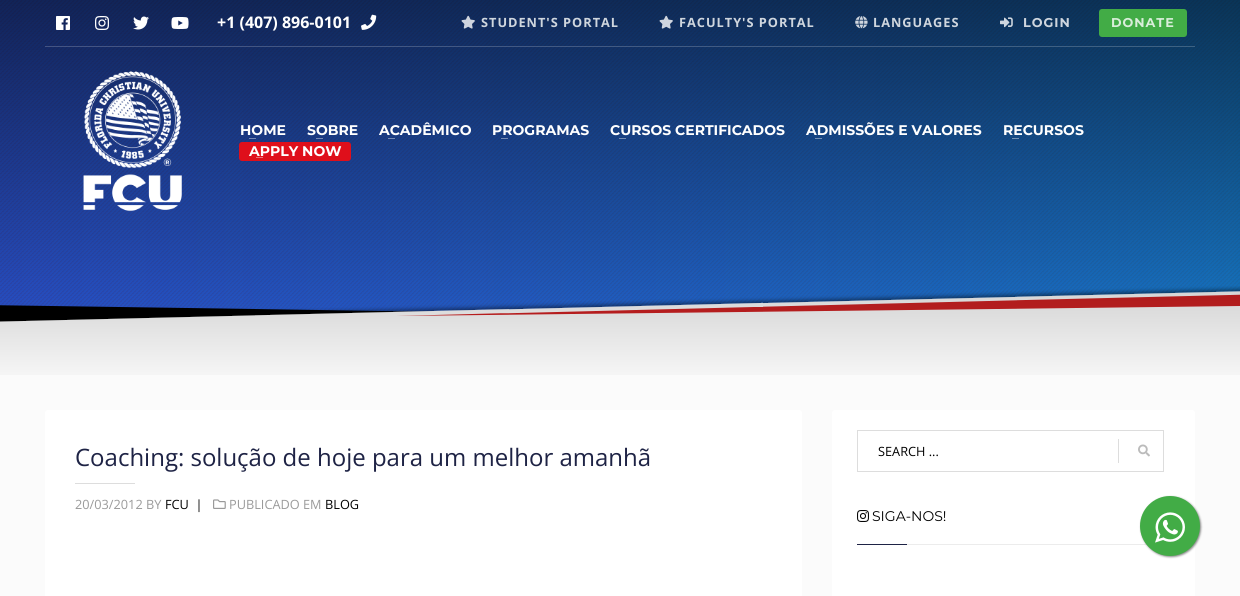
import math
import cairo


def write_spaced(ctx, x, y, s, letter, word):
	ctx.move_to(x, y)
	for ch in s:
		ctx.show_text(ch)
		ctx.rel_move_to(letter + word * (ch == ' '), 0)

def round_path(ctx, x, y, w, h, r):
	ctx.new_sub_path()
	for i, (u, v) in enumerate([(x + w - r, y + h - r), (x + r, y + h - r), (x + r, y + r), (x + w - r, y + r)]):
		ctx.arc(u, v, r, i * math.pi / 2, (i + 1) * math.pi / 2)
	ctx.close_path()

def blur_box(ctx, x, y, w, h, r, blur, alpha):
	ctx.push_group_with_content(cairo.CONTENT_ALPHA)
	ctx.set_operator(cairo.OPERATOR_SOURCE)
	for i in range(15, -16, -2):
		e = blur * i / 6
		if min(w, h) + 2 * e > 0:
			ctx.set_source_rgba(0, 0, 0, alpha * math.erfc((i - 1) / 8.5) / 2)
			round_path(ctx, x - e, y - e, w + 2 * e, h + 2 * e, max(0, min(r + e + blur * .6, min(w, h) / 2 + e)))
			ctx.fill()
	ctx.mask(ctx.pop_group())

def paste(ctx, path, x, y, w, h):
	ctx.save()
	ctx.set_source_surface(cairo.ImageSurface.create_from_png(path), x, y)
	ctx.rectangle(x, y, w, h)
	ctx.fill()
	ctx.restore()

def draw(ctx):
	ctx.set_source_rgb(0.984, 0.984, 0.984)
	ctx.paint()
	ctx.set_source_rgb(0.024, 0.435, 0.851)
	ctx.rectangle(0, 0, 1240, 312)
	ctx.fill()
	paste(ctx, 'media/1.png', 0, 0, 1240, 312)
	gradient = cairo.LinearGradient(0, 165, 1240, 165)
	gradient.add_color_stop_rgba(0, 0.51, 0.141, 0.89, 0.3)
	gradient.add_color_stop_rgba(1, 0.2, 0.62, 0.867, 0.4)
	ctx.set_source(gradient)
	ctx.rectangle(0, 0, 1240, 312)
	ctx.fill()
	paste(ctx, 'media/2.png', 0, 286, 1240, 44)
	gradient = cairo.LinearGradient(620, 0, 620, 389)
	gradient.add_color_stop_rgba(0, 0, 0, 0, 0.6)
	gradient.add_color_stop_rgba(1, 0, 0, 0, 0)
	ctx.set_source(gradient)
	ctx.rectangle(0, 0, 1240, 375)
	ctx.fill()
	paste(ctx, 'media/3.png', 56, 16, 14, 14)
	paste(ctx, 'media/4.png', 95, 16, 14, 14)
	paste(ctx, 'media/5.png', 133, 16, 16, 14)
	paste(ctx, 'media/6.png', 171, 17, 18, 12)
	ctx.select_font_face('Open Sans', cairo.FONT_SLANT_NORMAL, cairo.FONT_WEIGHT_BOLD)
	ctx.set_font_size(16)
	ctx.set_source_rgb(1, 1, 1)
	ctx.move_to(217, 28)
	ctx.show_text('+1 (407) 896-0101')
	paste(ctx, 'media/7.png', 361, 14, 16, 16)
	paste(ctx, 'media/8.png', 461, 15, 14, 14)
	ctx.set_font_size(12.75)
	ctx.set_source_rgb(0.812, 0.839, 0.871)
	write_spaced(ctx, 481, 27, 'STUDENT\'S PORTAL', 1, 0)
	paste(ctx, 'media/9.png', 659, 15, 14, 14)
	write_spaced(ctx, 679, 27, 'FACULTY\'S PORTAL', 1, 0)
	paste(ctx, 'media/10.png', 855, 16, 13, 13)
	write_spaced(ctx, 873, 27, 'LANGUAGES', 1, 0)
	paste(ctx, 'media/11.png', 1000, 17, 13, 11)
	ctx.select_font_face('Montserrat', cairo.FONT_SLANT_NORMAL, cairo.FONT_WEIGHT_BOLD)
	write_spaced(ctx, 1023, 27, 'LOGIN', 1, 0)
	ctx.set_source_rgb(0.259, 0.675, 0.275)
	round_path(ctx, 1099, 9, 88, 28, 3)
	ctx.fill()
	ctx.set_source_rgb(0.851, 0.933, 0.855)
	write_spaced(ctx, 1111, 27, 'DONATE', 1, 0)
	ctx.set_source_rgba(1, 1, 1, 0.2)
	ctx.rectangle(45, 46, 1150, 1)
	ctx.fill()
	paste(ctx, 'media/12.png', 83, 71, 99, 141)
	ctx.set_font_size(14)
	ctx.set_source_rgb(1, 1, 1)
	ctx.move_to(240, 135)
	ctx.show_text('HOME')
	ctx.set_source_rgba(1, 1, 1, 0.4)
	ctx.rectangle(249, 138, 7, 1)
	ctx.fill()
	ctx.set_source_rgb(1, 1, 1)
	ctx.move_to(307, 135)
	ctx.show_text('SOBRE')
	ctx.set_source_rgba(1, 1, 1, 0.4)
	ctx.rectangle(316, 138, 7, 1)
	ctx.fill()
	ctx.set_source_rgb(1, 1, 1)
	ctx.move_to(379, 135)
	ctx.show_text('ACADÊMICO')
	ctx.set_source_rgba(1, 1, 1, 0.4)
	ctx.rectangle(388, 138, 7, 1)
	ctx.fill()
	ctx.set_source_rgb(1, 1, 1)
	ctx.move_to(492, 135)
	ctx.show_text('PROGRAMAS')
	ctx.set_source_rgba(1, 1, 1, 0.4)
	ctx.rectangle(501, 138, 7, 1)
	ctx.fill()
	ctx.set_source_rgb(1, 1, 1)
	ctx.move_to(610, 135)
	ctx.show_text('CURSOS CERTIFICADOS')
	ctx.set_source_rgba(1, 1, 1, 0.4)
	ctx.rectangle(619, 138, 7, 1)
	ctx.fill()
	ctx.set_source_rgb(1, 1, 1)
	ctx.move_to(806, 135)
	ctx.show_text('ADMISSÕES E VALORES')
	ctx.set_source_rgba(1, 1, 1, 0.4)
	ctx.rectangle(815, 138, 7, 1)
	ctx.fill()
	ctx.set_source_rgb(1, 1, 1)
	ctx.move_to(1003, 135)
	ctx.show_text('RECURSOS')
	ctx.set_source_rgba(1, 1, 1, 0.4)
	ctx.rectangle(1012, 138, 7, 1)
	ctx.fill()
	ctx.set_source_rgb(0.875, 0.059, 0.106)
	round_path(ctx, 239, 142, 112, 19, 3)
	ctx.fill()
	ctx.set_source_rgb(1, 1, 1)
	ctx.move_to(249, 156)
	ctx.show_text('APPLY NOW')
	ctx.set_source_rgb(0.925, 0.435, 0.463)
	ctx.rectangle(256, 157, 7, 1)
	ctx.fill()
	ctx.set_source_rgb(1, 1, 1)
	round_path(ctx, 45, 410, 757, 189, 3)
	ctx.fill()
	ctx.select_font_face('Open Sans')
	ctx.set_font_size(24)
	ctx.set_source_rgb(0.118, 0.137, 0.271)
	ctx.move_to(75, 466)
	ctx.show_text('Coaching: solução de hoje para um melhor amanhã')
	ctx.set_source_rgb(0.867, 0.867, 0.867)
	ctx.rectangle(75, 483, 60, 1)
	ctx.fill()
	ctx.set_font_size(12.75)
	ctx.set_source_rgb(0.604, 0.604, 0.604)
	ctx.move_to(75, 509)
	ctx.show_text('20/03/2012 BY')
	ctx.set_source_rgb(0, 0, 0)
	ctx.move_to(165, 509)
	ctx.show_text('FCU  |')
	paste(ctx, 'media/13.png', 213, 499, 13, 10)
	ctx.set_source_rgb(0.604, 0.604, 0.604)
	ctx.move_to(229, 509)
	ctx.show_text('PUBLICADO EM')
	ctx.set_source_rgb(0, 0, 0)
	ctx.move_to(325, 509)
	ctx.show_text('BLOG')
	ctx.set_source_rgb(1, 1, 1)
	round_path(ctx, 832, 410, 363, 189, 3)
	ctx.fill()
	ctx.rectangle(857.5, 430.5, 306, 41)
	ctx.set_source_rgb(0.867, 0.867, 0.867)
	ctx.set_line_width(1)
	ctx.stroke()
	ctx.set_source_rgb(0, 0, 0)
	ctx.move_to(878, 456)
	ctx.show_text('SEARCH ...')
	ctx.set_source_rgb(0.867, 0.867, 0.867)
	ctx.rectangle(1118, 439, 1, 24)
	ctx.fill()
	paste(ctx, 'media/14.png', 1138, 444, 12, 13)
	paste(ctx, 'media/15.png', 857, 510, 12, 12)
	ctx.select_font_face('Montserrat')
	ctx.set_font_size(14)
	ctx.set_source_rgb(0, 0, 0)
	ctx.move_to(872, 521)
	ctx.show_text('SIGA-NOS!')
	ctx.set_source_rgb(0.118, 0.137, 0.271)
	ctx.rectangle(857, 544, 50, 1)
	ctx.fill()
	ctx.set_source_rgb(0.925, 0.925, 0.925)
	ctx.rectangle(907, 544, 240, 1)
	ctx.fill()
	ctx.set_source_rgb(0.533, 0.533, 0.533)
	blur_box(ctx, 1141, 497, 60, 60, 30, 1, 1)
	ctx.set_source_rgb(0.259, 0.675, 0.275)
	ctx.arc(1170, 526, 30, 0, 2 * math.pi)
	ctx.fill()
	paste(ctx, 'media/16.png', 1155, 512, 30, 31)


surface = cairo.ImageSurface(cairo.FORMAT_RGB24, 1240, 596)
ctx = cairo.Context(surface)
options = cairo.FontOptions()
options.set_hint_metrics(cairo.HINT_METRICS_OFF)
options.set_hint_style(cairo.HINT_STYLE_NONE)
ctx.set_font_options(options)
ctx.set_miter_limit(4)
draw(ctx)
surface.write_to_png('image.png')
